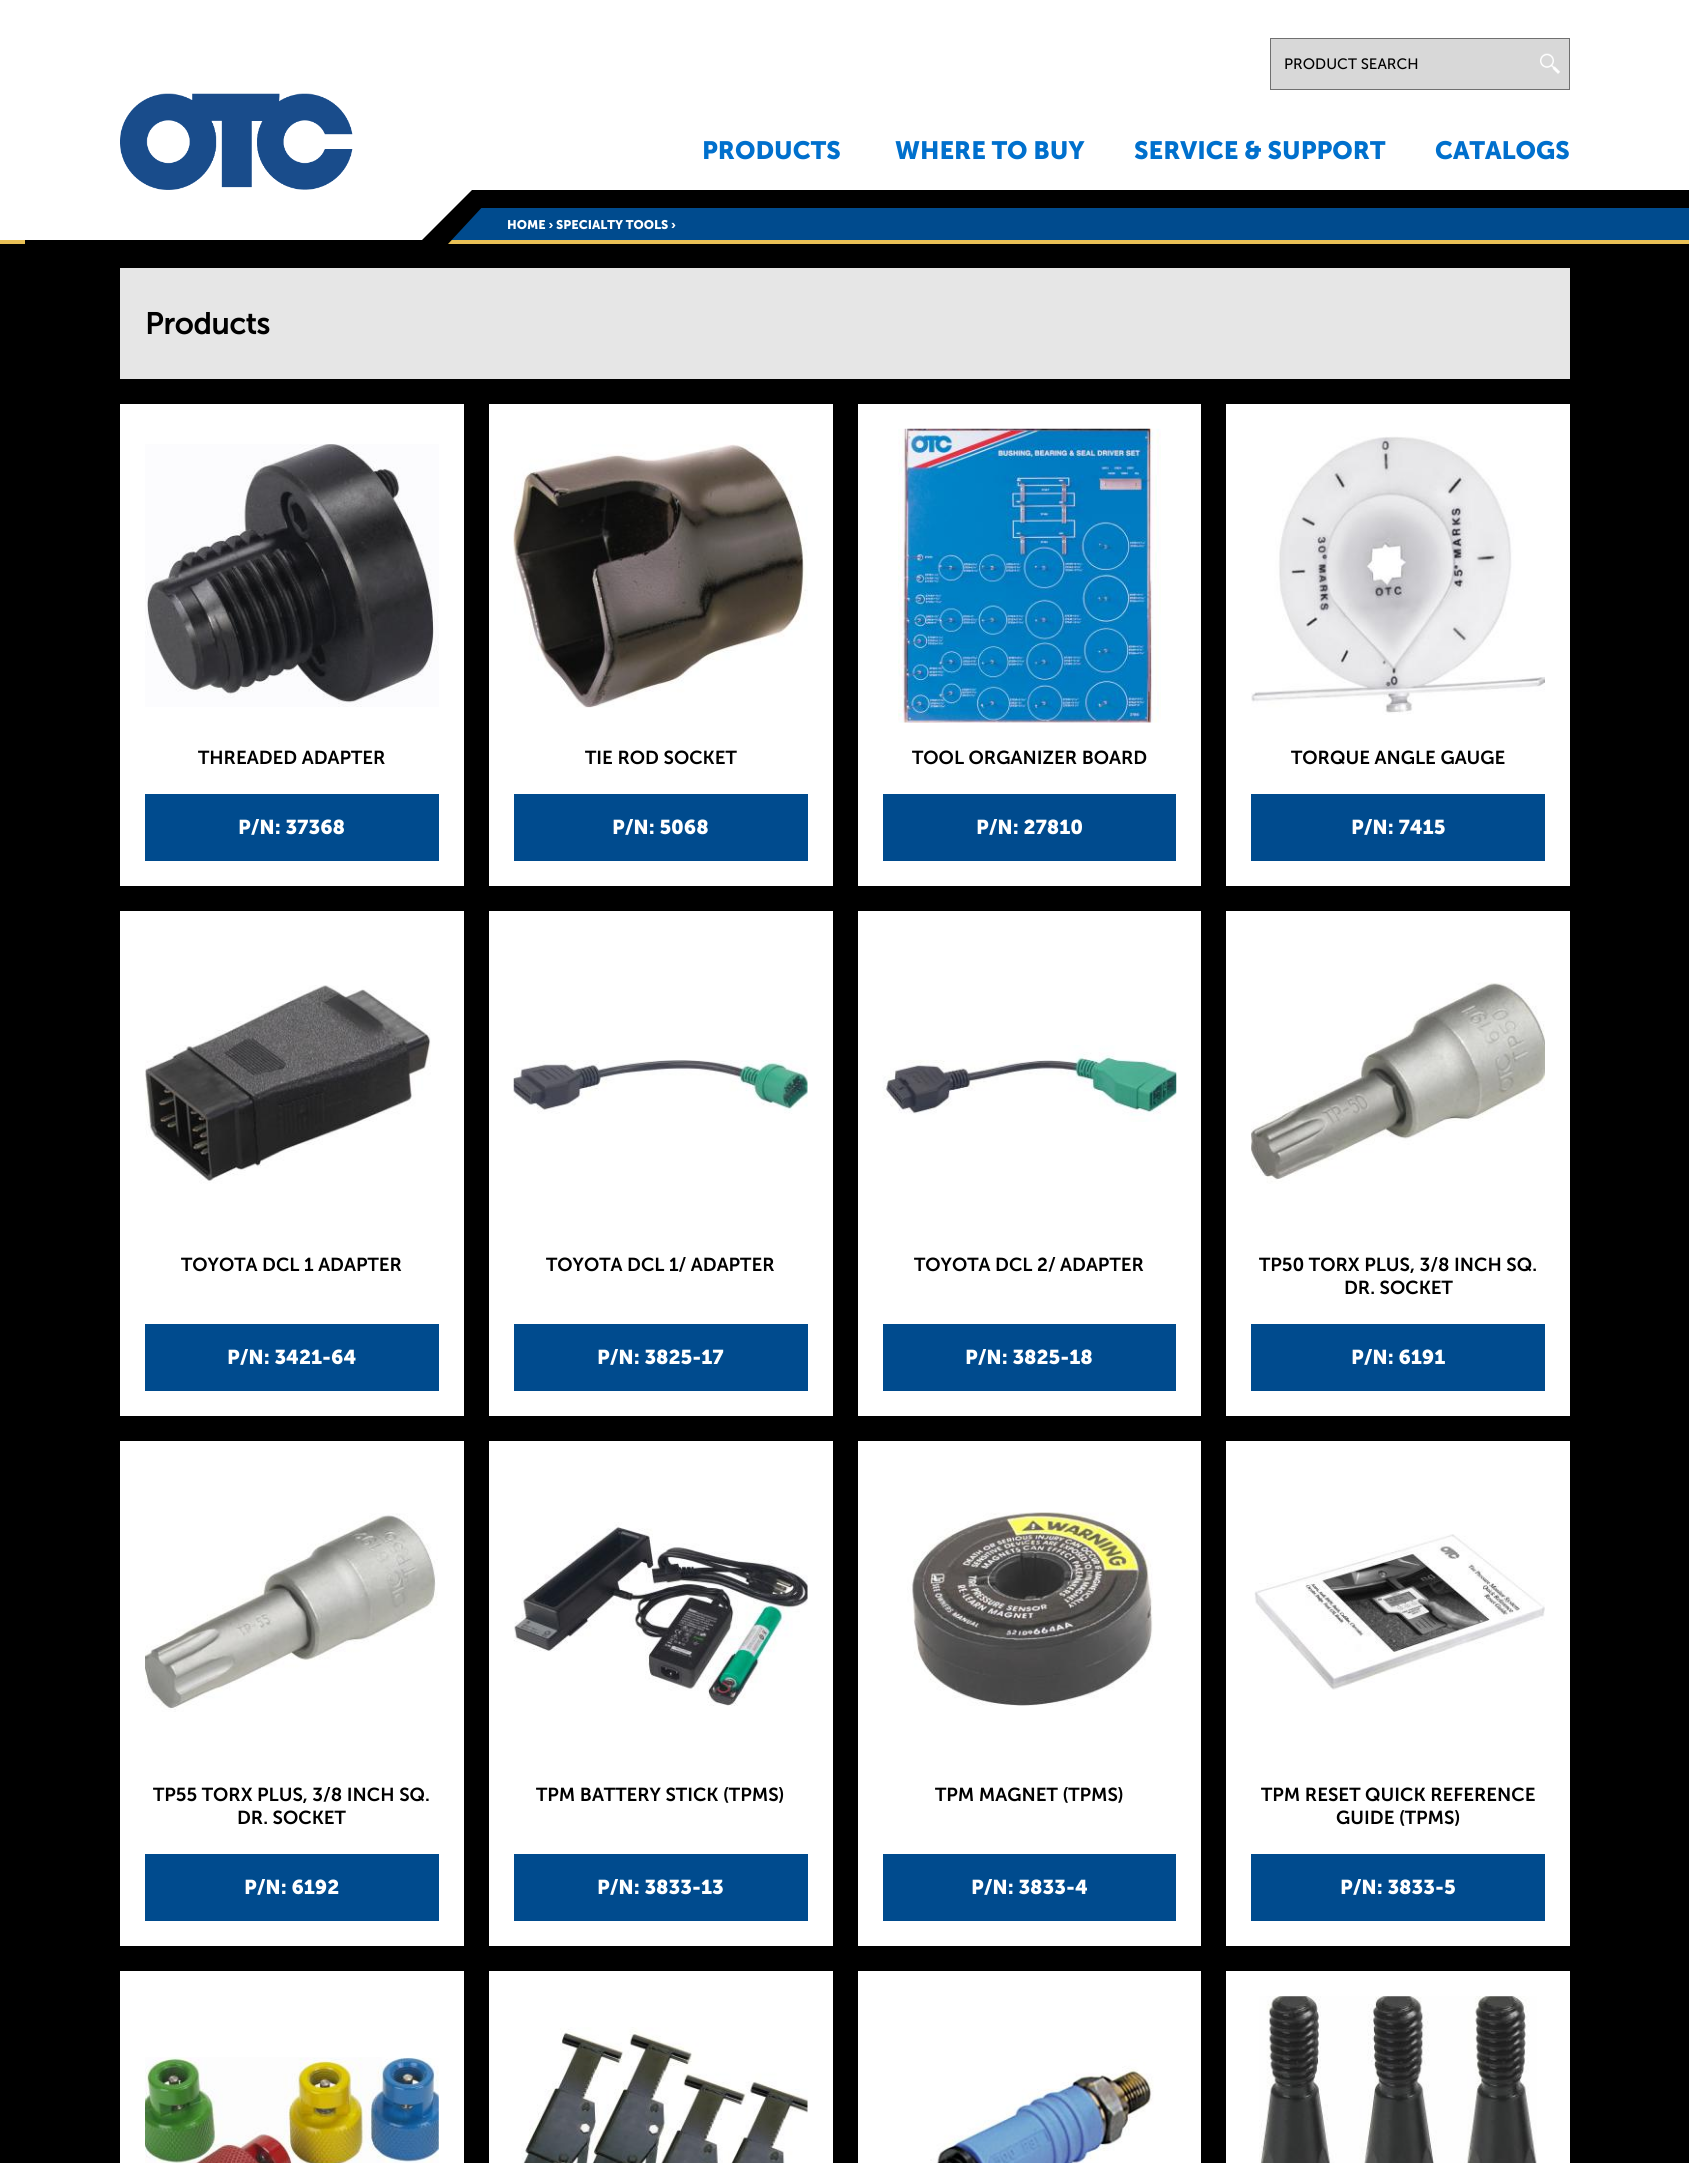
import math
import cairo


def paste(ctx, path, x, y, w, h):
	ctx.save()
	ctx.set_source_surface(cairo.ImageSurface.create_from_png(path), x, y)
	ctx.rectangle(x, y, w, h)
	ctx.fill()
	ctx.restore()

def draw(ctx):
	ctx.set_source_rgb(0, 0, 0)
	ctx.paint()
	ctx.set_source_rgb(1, 1, 1)
	ctx.rectangle(0, 0, 1689, 190)
	ctx.fill()
	paste(ctx, 'media/1.png', 120, 93, 233, 97)
	ctx.set_source_rgb(0.847, 0.847, 0.847)
	ctx.rectangle(1270.5, 38.5, 299, 51)
	ctx.fill_preserve()
	ctx.set_source_rgb(0.439, 0.439, 0.439)
	ctx.set_line_width(1)
	ctx.stroke()
	ctx.select_font_face('Museo Sans')
	ctx.set_font_size(15)
	ctx.set_source_rgb(0, 0, 0)
	ctx.move_to(1284, 69)
	ctx.show_text('PRODUCT SEARCH')
	paste(ctx, 'media/2.png', 1540, 53, 20, 21)
	ctx.select_font_face('Museo Sans', cairo.FONT_SLANT_NORMAL, cairo.FONT_WEIGHT_BOLD)
	ctx.set_font_size(25)
	ctx.set_source_rgb(0, 0.439, 0.804)
	for x, y, s in [
		(702, 159, 'PRODUCTS'),
		(895, 159, 'WHERE TO BUY'),
		(1134, 159, 'SERVICE & SUPPORT'),
		(1435, 159, 'CATALOGS'),
	]:
		ctx.move_to(x, y)
		ctx.show_text(s)
	ctx.set_source_rgb(0, 0.294, 0.557)
	ctx.rectangle(451, 208, 1238, 32)
	ctx.fill()
	ctx.set_source_rgb(0.914, 0.753, 0.333)
	ctx.rectangle(0, 240, 1689, 4)
	ctx.fill()
	ctx.set_source_rgb(0, 0, 0)
	ctx.new_path()
	ctx.move_to(25, 190)
	ctx.line_to(498, 190)
	ctx.line_to(448, 244)
	ctx.line_to(25, 244)
	ctx.close_path()
	ctx.fill()
	ctx.set_source_rgb(1, 1, 1)
	ctx.new_path()
	ctx.move_to(0, 190)
	ctx.line_to(472, 190)
	ctx.line_to(422, 240)
	ctx.line_to(0, 240)
	ctx.close_path()
	ctx.fill()
	ctx.set_font_size(12.5)
	ctx.move_to(507, 229)
	ctx.show_text('HOME › SPECIALTY TOOLS ›')
	ctx.set_source_rgb(0.902, 0.902, 0.902)
	ctx.rectangle(120, 268, 1450, 111)
	ctx.fill()
	ctx.select_font_face('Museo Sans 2', cairo.FONT_SLANT_NORMAL, cairo.FONT_WEIGHT_BOLD)
	ctx.set_font_size(30)
	ctx.set_source_rgb(0, 0, 0)
	ctx.move_to(145, 334)
	ctx.show_text('Products')
	ctx.set_source_rgb(1, 1, 1)
	ctx.rectangle(120, 404, 344, 482)
	ctx.fill()
	paste(ctx, 'media/3.png', 145, 444, 294, 263)
	ctx.select_font_face('Museo Sans SemiBold')
	ctx.set_font_size(18.75)
	ctx.set_source_rgb(0, 0, 0)
	ctx.move_to(198, 764)
	ctx.show_text('THREADED ADAPTER')
	ctx.set_source_rgb(0, 0.294, 0.557)
	ctx.rectangle(145, 794, 294, 67)
	ctx.fill()
	ctx.select_font_face('Museo Sans', cairo.FONT_SLANT_NORMAL, cairo.FONT_WEIGHT_BOLD)
	ctx.set_font_size(20)
	ctx.set_source_rgb(1, 1, 1)
	ctx.move_to(238, 834)
	ctx.show_text('P/N: 37368')
	ctx.rectangle(489, 404, 344, 482)
	ctx.fill()
	paste(ctx, 'media/4.png', 513, 444, 295, 264)
	ctx.select_font_face('Museo Sans SemiBold')
	ctx.set_font_size(18.75)
	ctx.set_source_rgb(0, 0, 0)
	ctx.move_to(585, 764)
	ctx.show_text('TIE ROD SOCKET')
	ctx.set_source_rgb(0, 0.294, 0.557)
	ctx.rectangle(514, 794, 294, 67)
	ctx.fill()
	ctx.select_font_face('Museo Sans', cairo.FONT_SLANT_NORMAL, cairo.FONT_WEIGHT_BOLD)
	ctx.set_font_size(20)
	ctx.set_source_rgb(1, 1, 1)
	ctx.move_to(612, 834)
	ctx.show_text('P/N: 5068')
	ctx.rectangle(858, 404, 343, 482)
	ctx.fill()
	paste(ctx, 'media/5.png', 898, 428, 263, 295)
	ctx.select_font_face('Museo Sans SemiBold')
	ctx.set_font_size(18.75)
	ctx.set_source_rgb(0, 0, 0)
	ctx.move_to(912, 764)
	ctx.show_text('TOOL ORGANIZER BOARD')
	ctx.set_source_rgb(0, 0.294, 0.557)
	ctx.rectangle(883, 794, 293, 67)
	ctx.fill()
	ctx.select_font_face('Museo Sans', cairo.FONT_SLANT_NORMAL, cairo.FONT_WEIGHT_BOLD)
	ctx.set_font_size(20)
	ctx.set_source_rgb(1, 1, 1)
	ctx.move_to(976, 834)
	ctx.show_text('P/N: 27810')
	ctx.rectangle(1226, 404, 344, 482)
	ctx.fill()
	paste(ctx, 'media/6.png', 1251, 436, 294, 279)
	ctx.select_font_face('Museo Sans SemiBold')
	ctx.set_font_size(18.75)
	ctx.set_source_rgb(0, 0, 0)
	ctx.move_to(1291, 764)
	ctx.show_text('TORQUE ANGLE GAUGE')
	ctx.set_source_rgb(0, 0.294, 0.557)
	ctx.rectangle(1251, 794, 294, 67)
	ctx.fill()
	ctx.select_font_face('Museo Sans', cairo.FONT_SLANT_NORMAL, cairo.FONT_WEIGHT_BOLD)
	ctx.set_font_size(20)
	ctx.set_source_rgb(1, 1, 1)
	ctx.move_to(1351, 834)
	ctx.show_text('P/N: 7415')
	ctx.rectangle(120, 911, 344, 505)
	ctx.fill()
	paste(ctx, 'media/7.png', 145, 985, 286, 199)
	ctx.select_font_face('Museo Sans SemiBold')
	ctx.set_font_size(18.75)
	ctx.set_source_rgb(0, 0, 0)
	ctx.move_to(181, 1271)
	ctx.show_text('TOYOTA DCL 1 ADAPTER')
	ctx.set_source_rgb(0, 0.294, 0.557)
	ctx.rectangle(145, 1324, 294, 67)
	ctx.fill()
	ctx.select_font_face('Museo Sans', cairo.FONT_SLANT_NORMAL, cairo.FONT_WEIGHT_BOLD)
	ctx.set_font_size(20)
	ctx.set_source_rgb(1, 1, 1)
	ctx.move_to(227, 1364)
	ctx.show_text('P/N: 3421-64')
	ctx.rectangle(489, 911, 344, 505)
	ctx.fill()
	paste(ctx, 'media/8.png', 513, 1060, 295, 54)
	ctx.select_font_face('Museo Sans SemiBold')
	ctx.set_font_size(18.75)
	ctx.set_source_rgb(0, 0, 0)
	ctx.move_to(546, 1271)
	ctx.show_text('TOYOTA DCL 1/ ADAPTER')
	ctx.set_source_rgb(0, 0.294, 0.557)
	ctx.rectangle(514, 1324, 294, 67)
	ctx.fill()
	ctx.select_font_face('Museo Sans', cairo.FONT_SLANT_NORMAL, cairo.FONT_WEIGHT_BOLD)
	ctx.set_font_size(20)
	ctx.set_source_rgb(1, 1, 1)
	ctx.move_to(597, 1364)
	ctx.show_text('P/N: 3825-17')
	ctx.rectangle(858, 911, 343, 505)
	ctx.fill()
	paste(ctx, 'media/9.png', 882, 1045, 295, 77)
	ctx.select_font_face('Museo Sans SemiBold')
	ctx.set_font_size(18.75)
	ctx.set_source_rgb(0, 0, 0)
	ctx.move_to(914, 1271)
	ctx.show_text('TOYOTA DCL 2/ ADAPTER')
	ctx.set_source_rgb(0, 0.294, 0.557)
	ctx.rectangle(883, 1324, 293, 67)
	ctx.fill()
	ctx.select_font_face('Museo Sans', cairo.FONT_SLANT_NORMAL, cairo.FONT_WEIGHT_BOLD)
	ctx.set_font_size(20)
	ctx.set_source_rgb(1, 1, 1)
	ctx.move_to(965, 1364)
	ctx.show_text('P/N: 3825-18')
	ctx.rectangle(1226, 911, 344, 505)
	ctx.fill()
	paste(ctx, 'media/10.png', 1251, 982, 294, 202)
	ctx.select_font_face('Museo Sans SemiBold')
	ctx.set_font_size(18.75)
	ctx.set_source_rgb(0, 0, 0)
	ctx.move_to(1259, 1271)
	ctx.show_text('TP50 TORX PLUS, 3/8 INCH SQ.')
	ctx.move_to(1344, 1294)
	ctx.show_text('DR. SOCKET')
	ctx.set_source_rgb(0, 0.294, 0.557)
	ctx.rectangle(1251, 1324, 294, 67)
	ctx.fill()
	ctx.select_font_face('Museo Sans', cairo.FONT_SLANT_NORMAL, cairo.FONT_WEIGHT_BOLD)
	ctx.set_font_size(20)
	ctx.set_source_rgb(1, 1, 1)
	ctx.move_to(1351, 1364)
	ctx.show_text('P/N: 6191')
	ctx.rectangle(120, 1441, 344, 505)
	ctx.fill()
	paste(ctx, 'media/11.png', 145, 1513, 293, 199)
	ctx.select_font_face('Museo Sans SemiBold')
	ctx.set_font_size(18.75)
	ctx.set_source_rgb(0, 0, 0)
	ctx.move_to(153, 1801)
	ctx.show_text('TP55 TORX PLUS, 3/8 INCH SQ.')
	ctx.move_to(237, 1824)
	ctx.show_text('DR. SOCKET')
	ctx.set_source_rgb(0, 0.294, 0.557)
	ctx.rectangle(145, 1854, 294, 67)
	ctx.fill()
	ctx.select_font_face('Museo Sans', cairo.FONT_SLANT_NORMAL, cairo.FONT_WEIGHT_BOLD)
	ctx.set_font_size(20)
	ctx.set_source_rgb(1, 1, 1)
	ctx.move_to(244, 1894)
	ctx.show_text('P/N: 6192')
	ctx.rectangle(489, 1441, 344, 505)
	ctx.fill()
	paste(ctx, 'media/12.png', 513, 1522, 295, 184)
	ctx.select_font_face('Museo Sans SemiBold')
	ctx.set_font_size(18.75)
	ctx.set_source_rgb(0, 0, 0)
	ctx.move_to(536, 1801)
	ctx.show_text('TPM BATTERY STICK (TPMS)')
	ctx.set_source_rgb(0, 0.294, 0.557)
	ctx.rectangle(514, 1854, 294, 67)
	ctx.fill()
	ctx.select_font_face('Museo Sans', cairo.FONT_SLANT_NORMAL, cairo.FONT_WEIGHT_BOLD)
	ctx.set_font_size(20)
	ctx.set_source_rgb(1, 1, 1)
	ctx.move_to(597, 1894)
	ctx.show_text('P/N: 3833-13')
	ctx.rectangle(858, 1441, 343, 505)
	ctx.fill()
	paste(ctx, 'media/13.png', 907, 1512, 246, 194)
	ctx.select_font_face('Museo Sans SemiBold')
	ctx.set_font_size(18.75)
	ctx.set_source_rgb(0, 0, 0)
	ctx.move_to(935, 1801)
	ctx.show_text('TPM MAGNET (TPMS)')
	ctx.set_source_rgb(0, 0.294, 0.557)
	ctx.rectangle(883, 1854, 293, 67)
	ctx.fill()
	ctx.select_font_face('Museo Sans', cairo.FONT_SLANT_NORMAL, cairo.FONT_WEIGHT_BOLD)
	ctx.set_font_size(20)
	ctx.set_source_rgb(1, 1, 1)
	ctx.move_to(971, 1894)
	ctx.show_text('P/N: 3833-4')
	ctx.rectangle(1226, 1441, 344, 505)
	ctx.fill()
	paste(ctx, 'media/14.png', 1254, 1534, 291, 156)
	ctx.select_font_face('Museo Sans SemiBold')
	ctx.set_font_size(18.75)
	ctx.set_source_rgb(0, 0, 0)
	ctx.move_to(1261, 1801)
	ctx.show_text('TPM RESET QUICK REFERENCE')
	ctx.move_to(1336, 1824)
	ctx.show_text('GUIDE (TPMS)')
	ctx.set_source_rgb(0, 0.294, 0.557)
	ctx.rectangle(1251, 1854, 294, 67)
	ctx.fill()
	ctx.select_font_face('Museo Sans', cairo.FONT_SLANT_NORMAL, cairo.FONT_WEIGHT_BOLD)
	ctx.set_font_size(20)
	ctx.set_source_rgb(1, 1, 1)
	ctx.move_to(1340, 1894)
	ctx.show_text('P/N: 3833-5')
	ctx.rectangle(120, 1971, 344, 192)
	ctx.fill()
	paste(ctx, 'media/15.png', 145, 2057, 294, 106)
	ctx.rectangle(489, 1971, 344, 192)
	ctx.fill()
	paste(ctx, 'media/16.png', 521, 2027, 287, 136)
	ctx.rectangle(858, 1971, 343, 192)
	ctx.fill()
	paste(ctx, 'media/17.png', 930, 2059, 224, 104)
	ctx.rectangle(1226, 1971, 344, 192)
	ctx.fill()
	paste(ctx, 'media/18.png', 1259, 1996, 278, 167)


surface = cairo.ImageSurface(cairo.FORMAT_RGB24, 1689, 2163)
ctx = cairo.Context(surface)
options = cairo.FontOptions()
options.set_hint_metrics(cairo.HINT_METRICS_OFF)
options.set_hint_style(cairo.HINT_STYLE_NONE)
ctx.set_font_options(options)
ctx.set_miter_limit(4)
draw(ctx)
surface.write_to_png('image.png')
